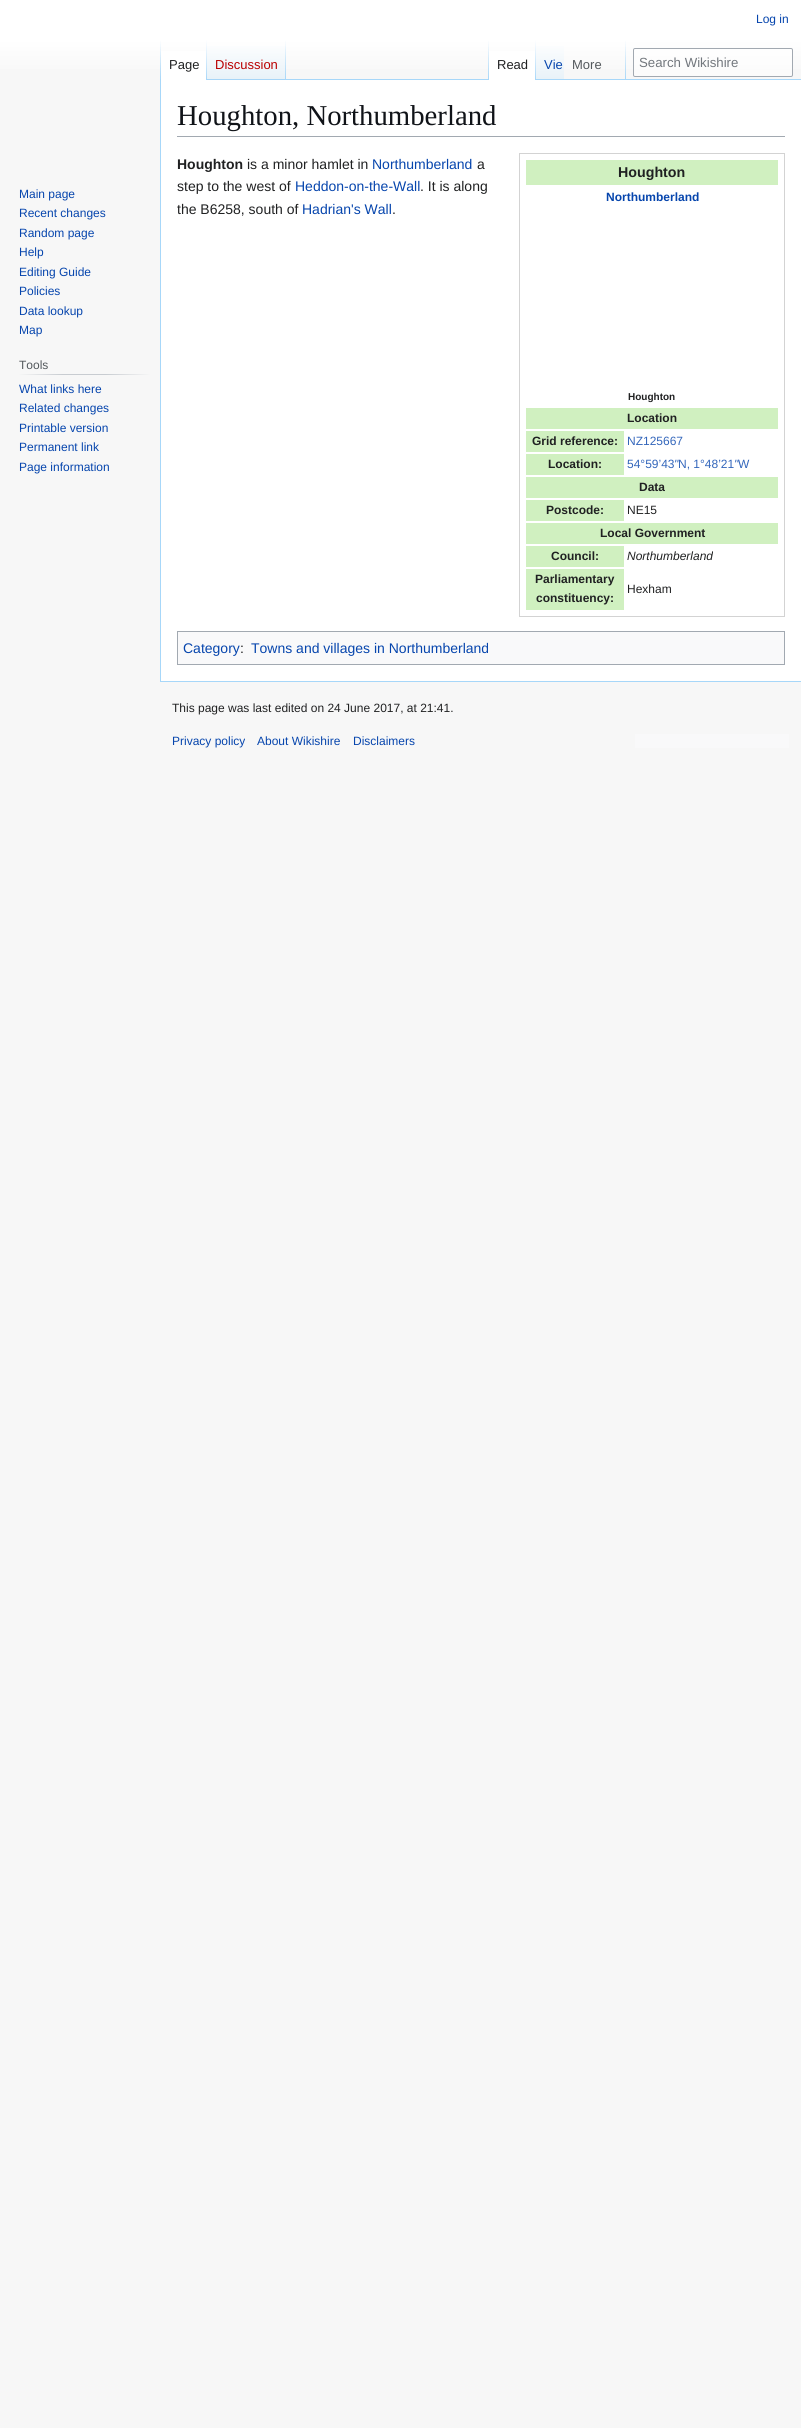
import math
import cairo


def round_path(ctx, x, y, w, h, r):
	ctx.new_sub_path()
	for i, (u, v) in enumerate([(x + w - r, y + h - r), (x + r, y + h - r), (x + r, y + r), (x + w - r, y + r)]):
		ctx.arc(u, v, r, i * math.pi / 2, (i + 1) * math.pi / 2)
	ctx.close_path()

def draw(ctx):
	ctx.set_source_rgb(0.965, 0.965, 0.965)
	ctx.paint()
	gradient = cairo.LinearGradient(401, 0, 401, 80)
	gradient.add_color_stop_rgba(0.5, 1, 1, 1, 1)
	gradient.add_color_stop_rgba(1, 0.965, 0.965, 0.965, 1)
	ctx.set_source(gradient)
	ctx.rectangle(0, 0, 801, 69)
	ctx.fill()
	ctx.select_font_face('Liberation Sans')
	ctx.set_font_size(12)
	ctx.set_source_rgb(0.024, 0.271, 0.678)
	ctx.move_to(756, 23)
	ctx.show_text('Log in')
	ctx.set_source_rgb(0.655, 0.843, 0.976)
	ctx.rectangle(160, 681, 641, 1)
	ctx.fill()
	ctx.rectangle(160, 79, 1, 603)
	ctx.fill()
	gradient = cairo.LinearGradient(161, 40, 161, 80)
	gradient.add_color_stop_rgba(0, 0.655, 0.843, 0.976, 0)
	gradient.add_color_stop_rgba(1, 0.655, 0.843, 0.976, 1)
	ctx.set_source(gradient)
	ctx.rectangle(160, 40, 1, 40)
	ctx.fill()
	ctx.set_source_rgb(1, 1, 1)
	ctx.rectangle(161, 51, 45, 29)
	ctx.fill()
	gradient = cairo.LinearGradient(207, 40, 207, 80)
	gradient.add_color_stop_rgba(0, 1, 1, 1, 1)
	gradient.add_color_stop_rgba(1, 0.655, 0.843, 0.976, 1)
	ctx.set_source(gradient)
	ctx.rectangle(206, 40, 1, 40)
	ctx.fill()
	ctx.set_font_size(13)
	ctx.set_source_rgb(0.125, 0.129, 0.133)
	ctx.move_to(169, 69)
	ctx.show_text('Page')
	gradient = cairo.LinearGradient(247, 80, 247, 40)
	gradient.add_color_stop_rgba(0, 0.467, 0.757, 0.965, 1)
	gradient.add_color_stop_rgba(0.03, 0.91, 0.949, 0.973, 1)
	gradient.add_color_stop_rgba(1, 1, 1, 1, 1)
	ctx.set_source(gradient)
	ctx.rectangle(207, 46, 79, 34)
	ctx.fill()
	gradient = cairo.LinearGradient(286, 40, 286, 80)
	gradient.add_color_stop_rgba(0, 0.655, 0.843, 0.976, 0)
	gradient.add_color_stop_rgba(1, 0.655, 0.843, 0.976, 1)
	ctx.set_source(gradient)
	ctx.rectangle(285, 40, 1, 40)
	ctx.fill()
	ctx.set_source_rgb(0.729, 0, 0)
	ctx.move_to(215, 69)
	ctx.show_text('Discussion')
	ctx.set_source_rgb(0.655, 0.843, 0.976)
	ctx.rectangle(286, 79, 515, 1)
	ctx.fill()
	gradient = cairo.LinearGradient(489, 40, 489, 80)
	gradient.add_color_stop_rgba(0, 0.655, 0.843, 0.976, 0)
	gradient.add_color_stop_rgba(1, 0.655, 0.843, 0.976, 1)
	ctx.set_source(gradient)
	ctx.rectangle(488, 40, 1, 40)
	ctx.fill()
	ctx.set_source_rgb(1, 1, 1)
	ctx.rectangle(489, 51, 46, 29)
	ctx.fill()
	gradient = cairo.LinearGradient(536, 40, 536, 80)
	gradient.add_color_stop_rgba(0, 1, 1, 1, 1)
	gradient.add_color_stop_rgba(1, 0.655, 0.843, 0.976, 1)
	ctx.set_source(gradient)
	ctx.rectangle(535, 40, 1, 40)
	ctx.fill()
	ctx.set_source_rgb(0.125, 0.129, 0.133)
	ctx.move_to(497, 69)
	ctx.show_text('Read')
	gradient = cairo.LinearGradient(550, 80, 550, 40)
	gradient.add_color_stop_rgba(0, 0.467, 0.757, 0.965, 1)
	gradient.add_color_stop_rgba(0.03, 0.91, 0.949, 0.973, 1)
	gradient.add_color_stop_rgba(1, 1, 1, 1, 1)
	ctx.set_source(gradient)
	ctx.rectangle(536, 46, 28, 33)
	ctx.fill()
	ctx.set_source_rgb(0.024, 0.271, 0.678)
	ctx.move_to(544, 69)
	ctx.show_text('Vie')
	gradient = cairo.LinearGradient(626, 40, 626, 80)
	gradient.add_color_stop_rgba(0, 0.655, 0.843, 0.976, 0)
	gradient.add_color_stop_rgba(1, 0.655, 0.843, 0.976, 1)
	ctx.set_source(gradient)
	ctx.rectangle(625, 40, 1, 40)
	ctx.fill()
	ctx.set_source_rgb(0.329, 0.349, 0.365)
	ctx.move_to(572, 69)
	ctx.show_text('More')
	ctx.set_source_rgba(1, 1, 1, 0.5)
	round_path(ctx, 633.5, 48.5, 159, 28, 1.5)
	ctx.fill_preserve()
	ctx.set_source_rgb(0.635, 0.663, 0.694)
	ctx.set_line_width(1)
	ctx.stroke()
	ctx.set_font_size(13.25)
	ctx.set_source_rgb(0.447, 0.467, 0.49)
	ctx.move_to(639, 67)
	ctx.show_text('Search Wikishire')
	ctx.set_font_size(12)
	ctx.set_source_rgb(0.024, 0.271, 0.678)
	for x, y, s in [
		(19, 198, 'Main page'),
		(19, 217, 'Recent changes'),
		(19, 237, 'Random page'),
		(19, 256, 'Help'),
		(19, 276, 'Editing Guide'),
		(19, 295, 'Policies'),
		(19, 315, 'Data lookup'),
		(19, 334, 'Map'),
	]:
		ctx.move_to(x, y)
		ctx.show_text(s)
	gradient = cairo.LinearGradient(19, 375, 150, 375)
	gradient.add_color_stop_rgba(0, 0.965, 0.965, 0.965, 1)
	gradient.add_color_stop_rgba(0.33, 0.784, 0.8, 0.82, 1)
	gradient.add_color_stop_rgba(0.66, 0.784, 0.8, 0.82, 1)
	gradient.add_color_stop_rgba(1, 0.965, 0.965, 0.965, 1)
	ctx.set_source(gradient)
	ctx.rectangle(19, 374, 131, 1)
	ctx.fill()
	ctx.set_source_rgb(0.329, 0.349, 0.365)
	ctx.move_to(19, 369)
	ctx.show_text('Tools')
	ctx.set_source_rgb(0.024, 0.271, 0.678)
	for x, y, s in [
		(19, 393, 'What links here'),
		(19, 412, 'Related changes'),
		(19, 432, 'Printable version'),
		(19, 451, 'Permanent link'),
		(19, 471, 'Page information'),
	]:
		ctx.move_to(x, y)
		ctx.show_text(s)
	ctx.set_source_rgb(1, 1, 1)
	ctx.rectangle(161, 80, 640, 601)
	ctx.fill()
	ctx.set_source_rgb(0.635, 0.663, 0.694)
	ctx.rectangle(177, 136, 608, 1)
	ctx.fill()
	ctx.select_font_face('Liberation Serif')
	ctx.set_font_size(28.75)
	ctx.set_source_rgb(0.063, 0.078, 0.094)
	ctx.move_to(177, 125)
	ctx.show_text('Houghton, Northumberland')
	ctx.select_font_face('Liberation Sans', cairo.FONT_SLANT_NORMAL, cairo.FONT_WEIGHT_BOLD)
	ctx.set_font_size(14)
	ctx.set_source_rgb(0.125, 0.129, 0.133)
	ctx.move_to(177, 169)
	ctx.show_text('Houghton')
	ctx.select_font_face('Liberation Sans')
	ctx.move_to(247, 169)
	ctx.show_text('is a minor hamlet in')
	ctx.set_source_rgb(0.024, 0.271, 0.678)
	ctx.move_to(372, 169)
	ctx.show_text('Northumberland')
	ctx.set_source_rgb(0.125, 0.129, 0.133)
	ctx.move_to(477, 169)
	ctx.show_text('a')
	ctx.move_to(177, 191)
	ctx.show_text('step to the west of')
	ctx.set_source_rgb(0.024, 0.271, 0.678)
	ctx.move_to(295, 191)
	ctx.show_text('Heddon-on-the-Wall')
	ctx.set_source_rgb(0.125, 0.129, 0.133)
	ctx.move_to(420, 191)
	ctx.show_text('. It is along')
	ctx.move_to(177, 214)
	ctx.show_text('the B6258, south of')
	ctx.set_source_rgb(0.024, 0.271, 0.678)
	ctx.move_to(302, 214)
	ctx.show_text('Hadrian\'s Wall')
	ctx.set_source_rgb(0.125, 0.129, 0.133)
	ctx.move_to(392, 214)
	ctx.show_text('.')
	ctx.rectangle(519.5, 153.5, 265, 463)
	ctx.set_source_rgb(0.827, 0.827, 0.827)
	ctx.stroke()
	ctx.set_source_rgb(0.816, 0.941, 0.753)
	ctx.rectangle(526, 160, 252, 25)
	ctx.fill()
	ctx.select_font_face('Liberation Sans', cairo.FONT_SLANT_NORMAL, cairo.FONT_WEIGHT_BOLD)
	ctx.set_font_size(14.25)
	ctx.set_source_rgb(0.125, 0.129, 0.133)
	ctx.move_to(618, 177)
	ctx.show_text('Houghton')
	ctx.set_font_size(12)
	ctx.set_source_rgb(0.024, 0.271, 0.678)
	ctx.move_to(606, 201)
	ctx.show_text('Northumberland')
	ctx.set_font_size(10)
	ctx.set_source_rgb(0.125, 0.129, 0.133)
	ctx.move_to(628, 400)
	ctx.show_text('Houghton')
	ctx.set_source_rgb(0.816, 0.941, 0.753)
	ctx.rectangle(526, 408, 252, 21)
	ctx.fill()
	ctx.set_font_size(12)
	ctx.set_source_rgb(0.125, 0.129, 0.133)
	ctx.move_to(627, 422)
	ctx.show_text('Location')
	ctx.set_source_rgb(0.816, 0.941, 0.753)
	ctx.rectangle(526, 431, 98, 21)
	ctx.fill()
	ctx.set_source_rgb(0.125, 0.129, 0.133)
	ctx.move_to(532, 445)
	ctx.show_text('Grid reference:')
	ctx.select_font_face('Liberation Sans')
	ctx.set_source_rgb(0.2, 0.4, 0.733)
	ctx.move_to(627, 445)
	ctx.show_text('NZ125667')
	ctx.set_source_rgb(0.816, 0.941, 0.753)
	ctx.rectangle(526, 454, 98, 21)
	ctx.fill()
	ctx.select_font_face('Liberation Sans', cairo.FONT_SLANT_NORMAL, cairo.FONT_WEIGHT_BOLD)
	ctx.set_source_rgb(0.125, 0.129, 0.133)
	ctx.move_to(548, 468)
	ctx.show_text('Location:')
	ctx.select_font_face('Liberation Sans')
	ctx.set_source_rgb(0.2, 0.4, 0.733)
	ctx.move_to(627, 468)
	ctx.show_text('54°59’43')
	ctx.select_font_face('Liberation Sans', cairo.FONT_SLANT_ITALIC)
	ctx.move_to(674, 468)
	ctx.show_text('"')
	ctx.select_font_face('Liberation Sans')
	ctx.move_to(678, 468)
	ctx.show_text('N, 1°48’21')
	ctx.select_font_face('Liberation Sans', cairo.FONT_SLANT_ITALIC)
	ctx.move_to(734, 468)
	ctx.show_text('"')
	ctx.select_font_face('Liberation Sans')
	ctx.move_to(738, 468)
	ctx.show_text('W')
	ctx.set_source_rgb(0.816, 0.941, 0.753)
	ctx.rectangle(526, 477, 252, 21)
	ctx.fill()
	ctx.select_font_face('Liberation Sans', cairo.FONT_SLANT_NORMAL, cairo.FONT_WEIGHT_BOLD)
	ctx.set_source_rgb(0.125, 0.129, 0.133)
	ctx.move_to(639, 491)
	ctx.show_text('Data')
	ctx.set_source_rgb(0.816, 0.941, 0.753)
	ctx.rectangle(526, 500, 98, 21)
	ctx.fill()
	ctx.set_source_rgb(0.125, 0.129, 0.133)
	ctx.move_to(546, 514)
	ctx.show_text('Postcode:')
	ctx.select_font_face('Liberation Sans')
	ctx.move_to(627, 514)
	ctx.show_text('NE15')
	ctx.set_source_rgb(0.816, 0.941, 0.753)
	ctx.rectangle(526, 523, 252, 21)
	ctx.fill()
	ctx.select_font_face('Liberation Sans', cairo.FONT_SLANT_NORMAL, cairo.FONT_WEIGHT_BOLD)
	ctx.set_source_rgb(0.125, 0.129, 0.133)
	ctx.move_to(600, 537)
	ctx.show_text('Local Government')
	ctx.set_source_rgb(0.816, 0.941, 0.753)
	ctx.rectangle(526, 546, 98, 21)
	ctx.fill()
	ctx.set_source_rgb(0.125, 0.129, 0.133)
	ctx.move_to(551, 560)
	ctx.show_text('Council:')
	ctx.select_font_face('Liberation Sans', cairo.FONT_SLANT_ITALIC)
	ctx.move_to(627, 560)
	ctx.show_text('Northumberland')
	ctx.set_source_rgb(0.816, 0.941, 0.753)
	ctx.rectangle(526, 569, 98, 41)
	ctx.fill()
	ctx.select_font_face('Liberation Sans', cairo.FONT_SLANT_NORMAL, cairo.FONT_WEIGHT_BOLD)
	ctx.set_source_rgb(0.125, 0.129, 0.133)
	ctx.move_to(535, 583)
	ctx.show_text('Parliamentary')
	ctx.move_to(536, 602)
	ctx.show_text('constituency:')
	ctx.select_font_face('Liberation Sans')
	ctx.move_to(627, 593)
	ctx.show_text('Hexham')
	ctx.set_source_rgb(0.973, 0.976, 0.98)
	ctx.rectangle(177.5, 631.5, 607, 33)
	ctx.fill_preserve()
	ctx.set_source_rgb(0.635, 0.663, 0.694)
	ctx.stroke()
	ctx.set_font_size(14)
	ctx.set_source_rgb(0.024, 0.271, 0.678)
	ctx.move_to(183, 653)
	ctx.show_text('Category')
	ctx.set_source_rgb(0.125, 0.129, 0.133)
	ctx.move_to(240, 653)
	ctx.show_text(':')
	ctx.set_source_rgb(0.024, 0.271, 0.678)
	ctx.move_to(251, 653)
	ctx.show_text('Towns and villages in Northumberland')
	ctx.set_font_size(12)
	ctx.set_source_rgb(0.125, 0.129, 0.133)
	ctx.move_to(172, 712)
	ctx.show_text('This page was last edited on 24 June 2017, at 21:41.')
	ctx.set_source_rgb(0.024, 0.271, 0.678)
	for x, y, s in [
		(172, 745, 'Privacy policy'),
		(257, 745, 'About Wikishire'),
		(353, 745, 'Disclaimers'),
	]:
		ctx.move_to(x, y)
		ctx.show_text(s)
	ctx.set_source_rgb(0.973, 0.976, 0.98)
	ctx.rectangle(635, 734, 154, 14)
	ctx.fill()


surface = cairo.ImageSurface(cairo.FORMAT_RGB24, 801, 2428)
ctx = cairo.Context(surface)
options = cairo.FontOptions()
options.set_hint_metrics(cairo.HINT_METRICS_OFF)
options.set_hint_style(cairo.HINT_STYLE_NONE)
ctx.set_font_options(options)
ctx.set_miter_limit(4)
draw(ctx)
surface.write_to_png('image.png')
